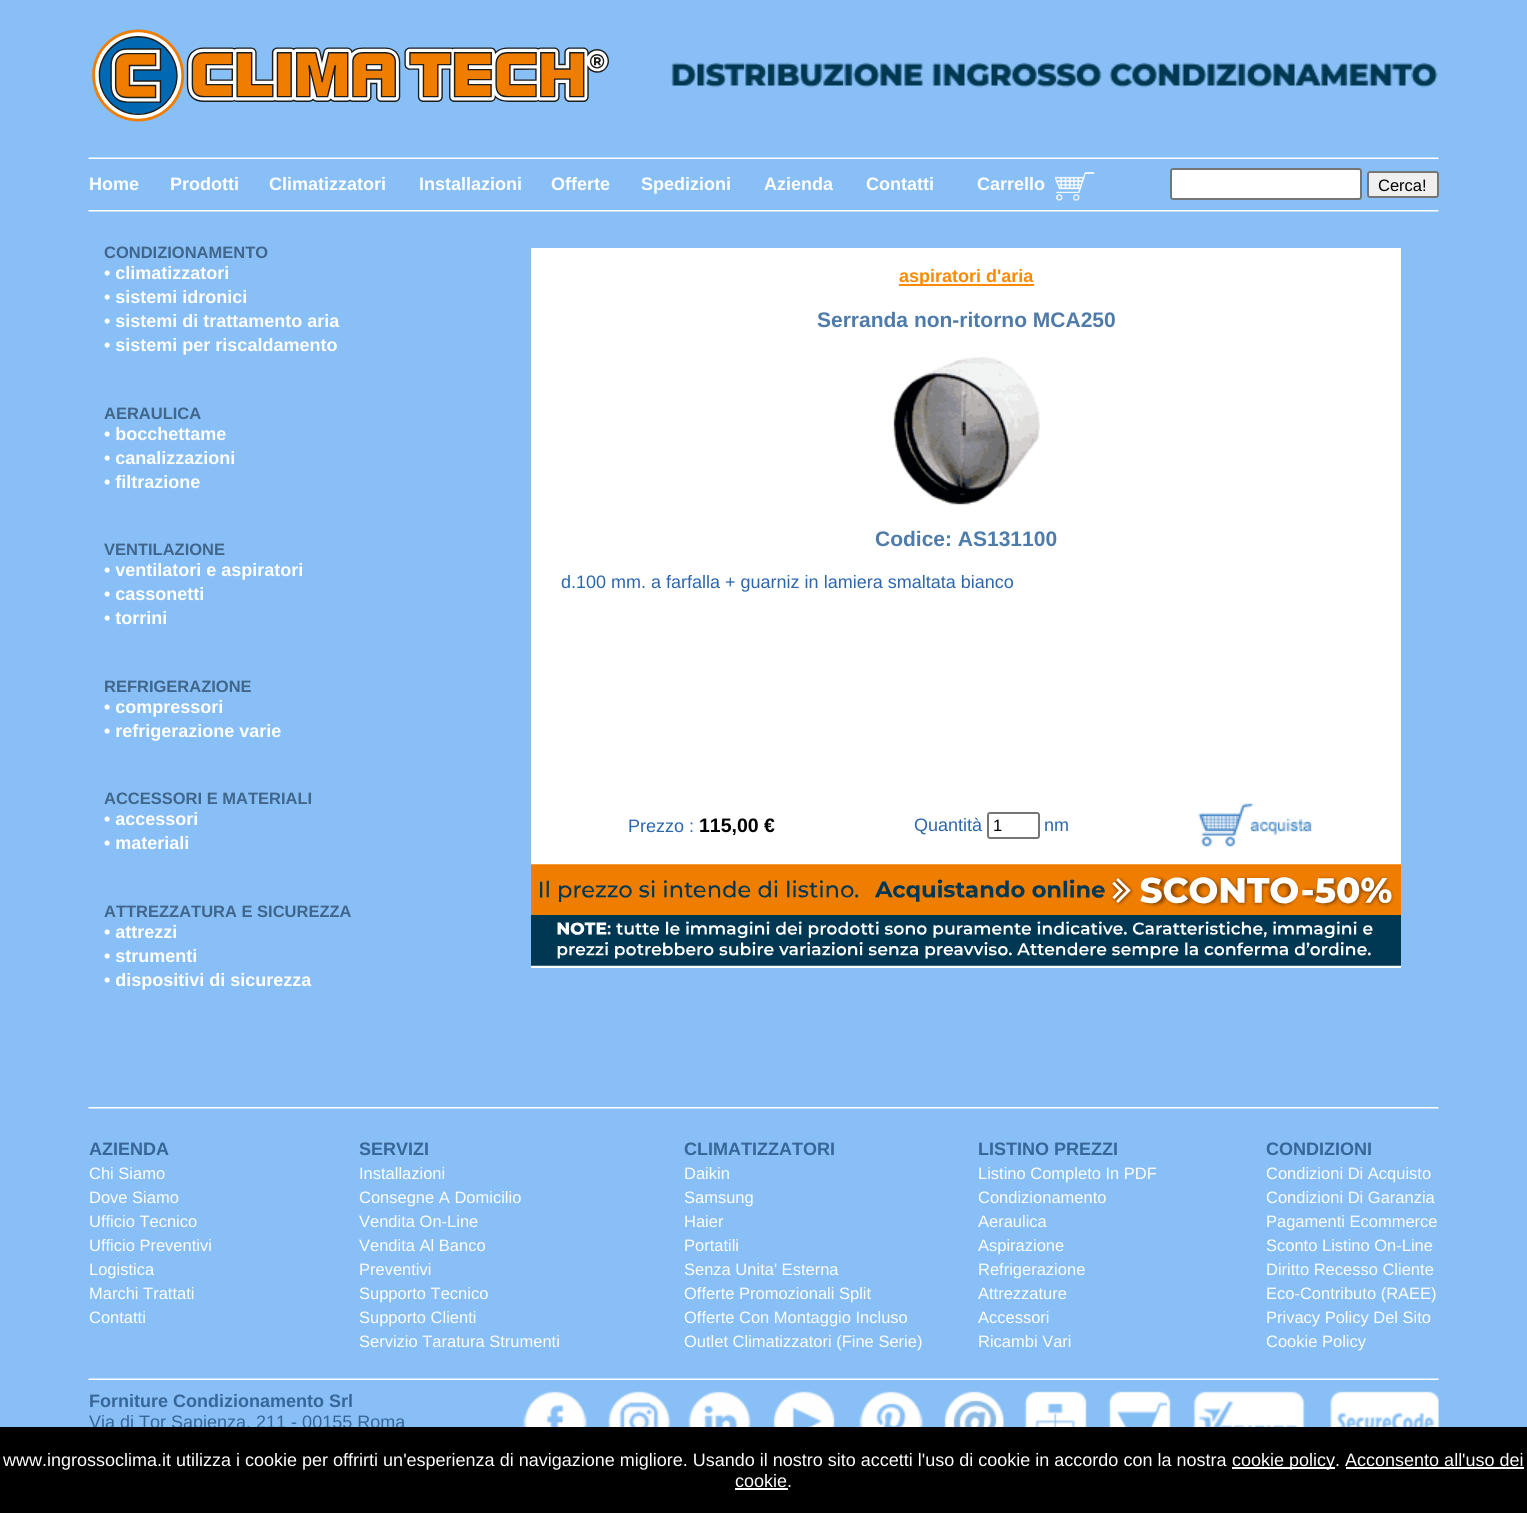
import math
import cairo


def round_path(ctx, x, y, w, h, r):
	ctx.new_sub_path()
	for i, (u, v) in enumerate([(x + w - r, y + h - r), (x + r, y + h - r), (x + r, y + r), (x + w - r, y + r)]):
		ctx.arc(u, v, r, i * math.pi / 2, (i + 1) * math.pi / 2)
	ctx.close_path()

def paste(ctx, path, x, y, w, h):
	ctx.save()
	ctx.set_source_surface(cairo.ImageSurface.create_from_png(path), x, y)
	ctx.rectangle(x, y, w, h)
	ctx.fill()
	ctx.restore()

def draw(ctx):
	ctx.set_source_rgb(0.533, 0.749, 0.961)
	ctx.paint()
	paste(ctx, 'media/1.png', 92, 29, 517, 93)
	paste(ctx, 'media/2.png', 671, 62, 767, 26)
	paste(ctx, 'media/3.png', 88, 157, 1351, 2)
	ctx.select_font_face('Liberation Sans', cairo.FONT_SLANT_NORMAL, cairo.FONT_WEIGHT_BOLD)
	ctx.set_font_size(18)
	ctx.set_source_rgb(1, 1, 1)
	for x, y, s in [
		(89, 190, 'Home'),
		(170, 190, 'Prodotti'),
		(269, 190, 'Climatizzatori'),
		(419, 190, 'Installazioni'),
		(551, 190, 'Offerte'),
		(641, 190, 'Spedizioni'),
		(764, 190, 'Azienda'),
		(866, 190, 'Contatti'),
		(977, 190, 'Carrello'),
	]:
		ctx.move_to(x, y)
		ctx.show_text(s)
	paste(ctx, 'media/4.png', 1055, 172, 40, 29)
	round_path(ctx, 1171, 169, 190, 30, 2)
	ctx.fill_preserve()
	ctx.set_source_rgb(0.463, 0.463, 0.463)
	ctx.stroke()
	ctx.set_source_rgb(0.937, 0.937, 0.937)
	round_path(ctx, 1368, 172, 70, 25, 2)
	ctx.fill_preserve()
	ctx.set_source_rgb(0.463, 0.463, 0.463)
	ctx.stroke()
	ctx.select_font_face('Liberation Sans')
	ctx.set_font_size(16.5)
	ctx.set_source_rgb(0, 0, 0)
	ctx.move_to(1378, 191)
	ctx.show_text('Cerca!')
	paste(ctx, 'media/5.png', 88, 210, 1351, 2)
	ctx.select_font_face('Liberation Sans', cairo.FONT_SLANT_NORMAL, cairo.FONT_WEIGHT_BOLD)
	ctx.set_source_rgb(0.255, 0.4, 0.545)
	ctx.move_to(104, 258)
	ctx.show_text('CONDIZIONAMENTO')
	ctx.set_font_size(18)
	ctx.set_source_rgb(1, 1, 1)
	for x, y, s in [
		(104, 279, '• climatizzatori'),
		(104, 303, '• sistemi idronici'),
		(104, 327, '• sistemi di trattamento aria'),
		(104, 351, '• sistemi per riscaldamento'),
	]:
		ctx.move_to(x, y)
		ctx.show_text(s)
	ctx.set_font_size(16.5)
	ctx.set_source_rgb(0.255, 0.4, 0.545)
	ctx.move_to(104, 419)
	ctx.show_text('AERAULICA')
	ctx.set_font_size(18)
	ctx.set_source_rgb(1, 1, 1)
	for x, y, s in [
		(104, 440, '• bocchettame'),
		(104, 464, '• canalizzazioni'),
		(104, 488, '• filtrazione'),
	]:
		ctx.move_to(x, y)
		ctx.show_text(s)
	ctx.set_font_size(16.5)
	ctx.set_source_rgb(0.255, 0.4, 0.545)
	ctx.move_to(104, 555)
	ctx.show_text('VENTILAZIONE')
	ctx.set_font_size(18)
	ctx.set_source_rgb(1, 1, 1)
	for x, y, s in [
		(104, 576, '• ventilatori e aspiratori'),
		(104, 600, '• cassonetti'),
		(104, 624, '• torrini'),
	]:
		ctx.move_to(x, y)
		ctx.show_text(s)
	ctx.set_font_size(16.5)
	ctx.set_source_rgb(0.255, 0.4, 0.545)
	ctx.move_to(104, 692)
	ctx.show_text('REFRIGERAZIONE')
	ctx.set_font_size(18)
	ctx.set_source_rgb(1, 1, 1)
	ctx.move_to(104, 713)
	ctx.show_text('• compressori')
	ctx.move_to(104, 737)
	ctx.show_text('• refrigerazione varie')
	ctx.set_font_size(16.5)
	ctx.set_source_rgb(0.255, 0.4, 0.545)
	ctx.move_to(104, 804)
	ctx.show_text('ACCESSORI E MATERIALI')
	ctx.set_font_size(18)
	ctx.set_source_rgb(1, 1, 1)
	ctx.move_to(104, 825)
	ctx.show_text('• accessori')
	ctx.move_to(104, 849)
	ctx.show_text('• materiali')
	ctx.set_font_size(16.5)
	ctx.set_source_rgb(0.255, 0.4, 0.545)
	ctx.move_to(104, 917)
	ctx.show_text('ATTREZZATURA E SICUREZZA')
	ctx.set_font_size(18)
	ctx.set_source_rgb(1, 1, 1)
	for x, y, s in [
		(104, 938, '• attrezzi'),
		(104, 962, '• strumenti'),
		(104, 986, '• dispositivi di sicurezza'),
	]:
		ctx.move_to(x, y)
		ctx.show_text(s)
	ctx.rectangle(531, 248, 870, 534)
	ctx.fill()
	ctx.set_source_rgb(1, 0.537, 0)
	ctx.rectangle(899, 284, 135, 2)
	ctx.fill()
	ctx.move_to(899, 282)
	ctx.show_text('aspiratori d\'aria')
	ctx.set_font_size(21)
	ctx.set_source_rgb(0.306, 0.482, 0.663)
	ctx.move_to(817, 327)
	ctx.show_text('Serranda non-ritorno MCA250')
	paste(ctx, 'media/6.png', 893, 357, 147, 148)
	ctx.move_to(875, 546)
	ctx.show_text('Codice: AS131100')
	ctx.select_font_face('Liberation Sans')
	ctx.set_font_size(18)
	ctx.set_source_rgb(0.173, 0.4, 0.675)
	ctx.move_to(561, 588)
	ctx.show_text('d.100 mm. a farfalla + guarniz in lamiera smaltata bianco')
	ctx.set_source_rgb(1, 1, 1)
	ctx.rectangle(531, 782, 870, 21)
	ctx.fill()
	ctx.rectangle(531, 803, 870, 165)
	ctx.fill()
	ctx.set_source_rgb(0.173, 0.4, 0.675)
	ctx.move_to(628, 832)
	ctx.show_text('Prezzo :')
	ctx.select_font_face('Liberation Sans', cairo.FONT_SLANT_NORMAL, cairo.FONT_WEIGHT_BOLD)
	ctx.set_font_size(19.5)
	ctx.set_source_rgb(0, 0, 0)
	ctx.move_to(699, 832)
	ctx.show_text('115,00')
	ctx.move_to(764, 832)
	ctx.show_text('€')
	ctx.select_font_face('Liberation Sans')
	ctx.set_font_size(18)
	ctx.set_source_rgb(0.173, 0.4, 0.675)
	ctx.move_to(914, 831)
	ctx.show_text('Quantità')
	round_path(ctx, 988, 813, 51, 25, 2)
	ctx.set_source_rgb(0.463, 0.463, 0.463)
	ctx.stroke()
	ctx.set_font_size(16.5)
	ctx.set_source_rgb(0, 0, 0)
	ctx.move_to(993, 831)
	ctx.show_text('1')
	ctx.set_font_size(18)
	ctx.set_source_rgb(0.173, 0.4, 0.675)
	ctx.move_to(1044, 831)
	ctx.show_text('nm')
	paste(ctx, 'media/7.png', 1198, 802, 114, 46)
	paste(ctx, 'media/8.png', 531, 864, 870, 102)
	paste(ctx, 'media/5.png', 88, 1107, 1351, 2)
	ctx.select_font_face('Liberation Sans', cairo.FONT_SLANT_NORMAL, cairo.FONT_WEIGHT_BOLD)
	ctx.set_source_rgb(0.212, 0.404, 0.596)
	ctx.move_to(89, 1155)
	ctx.show_text('AZIENDA')
	ctx.select_font_face('Liberation Sans')
	ctx.set_font_size(16.5)
	ctx.set_source_rgb(1, 1, 1)
	for x, y, s in [
		(89, 1179, 'Chi Siamo'),
		(89, 1203, 'Dove Siamo'),
		(89, 1227, 'Ufficio Tecnico'),
		(89, 1251, 'Ufficio Preventivi'),
		(89, 1275, 'Logistica'),
		(89, 1299, 'Marchi Trattati'),
		(89, 1323, 'Contatti'),
	]:
		ctx.move_to(x, y)
		ctx.show_text(s)
	ctx.select_font_face('Liberation Sans', cairo.FONT_SLANT_NORMAL, cairo.FONT_WEIGHT_BOLD)
	ctx.set_font_size(18)
	ctx.set_source_rgb(0.212, 0.404, 0.596)
	ctx.move_to(359, 1155)
	ctx.show_text('SERVIZI')
	ctx.select_font_face('Liberation Sans')
	ctx.set_font_size(16.5)
	ctx.set_source_rgb(1, 1, 1)
	for x, y, s in [
		(359, 1179, 'Installazioni'),
		(359, 1203, 'Consegne A Domicilio'),
		(359, 1227, 'Vendita On-Line'),
		(359, 1251, 'Vendita Al Banco'),
		(359, 1275, 'Preventivi'),
		(359, 1299, 'Supporto Tecnico'),
		(359, 1323, 'Supporto Clienti'),
		(359, 1347, 'Servizio Taratura Strumenti'),
	]:
		ctx.move_to(x, y)
		ctx.show_text(s)
	ctx.select_font_face('Liberation Sans', cairo.FONT_SLANT_NORMAL, cairo.FONT_WEIGHT_BOLD)
	ctx.set_font_size(18)
	ctx.set_source_rgb(0.212, 0.404, 0.596)
	ctx.move_to(684, 1155)
	ctx.show_text('CLIMATIZZATORI')
	ctx.select_font_face('Liberation Sans')
	ctx.set_font_size(16.5)
	ctx.set_source_rgb(1, 1, 1)
	for x, y, s in [
		(684, 1179, 'Daikin'),
		(684, 1203, 'Samsung'),
		(684, 1227, 'Haier'),
		(684, 1251, 'Portatili'),
		(684, 1275, 'Senza Unita\' Esterna'),
		(684, 1299, 'Offerte Promozionali Split'),
		(684, 1323, 'Offerte Con Montaggio Incluso'),
		(684, 1347, 'Outlet Climatizzatori (Fine Serie)'),
	]:
		ctx.move_to(x, y)
		ctx.show_text(s)
	ctx.select_font_face('Liberation Sans', cairo.FONT_SLANT_NORMAL, cairo.FONT_WEIGHT_BOLD)
	ctx.set_font_size(18)
	ctx.set_source_rgb(0.212, 0.404, 0.596)
	ctx.move_to(978, 1155)
	ctx.show_text('LISTINO PREZZI')
	ctx.select_font_face('Liberation Sans')
	ctx.set_font_size(16.5)
	ctx.set_source_rgb(1, 1, 1)
	for x, y, s in [
		(978, 1179, 'Listino Completo In PDF'),
		(978, 1203, 'Condizionamento'),
		(978, 1227, 'Aeraulica'),
		(978, 1251, 'Aspirazione'),
		(978, 1275, 'Refrigerazione'),
		(978, 1299, 'Attrezzature'),
		(978, 1323, 'Accessori'),
		(978, 1347, 'Ricambi Vari'),
	]:
		ctx.move_to(x, y)
		ctx.show_text(s)
	ctx.select_font_face('Liberation Sans', cairo.FONT_SLANT_NORMAL, cairo.FONT_WEIGHT_BOLD)
	ctx.set_font_size(18)
	ctx.set_source_rgb(0.212, 0.404, 0.596)
	ctx.move_to(1266, 1155)
	ctx.show_text('CONDIZIONI')
	ctx.select_font_face('Liberation Sans')
	ctx.set_font_size(16.5)
	ctx.set_source_rgb(1, 1, 1)
	for x, y, s in [
		(1266, 1179, 'Condizioni Di Acquisto'),
		(1266, 1203, 'Condizioni Di Garanzia'),
		(1266, 1227, 'Pagamenti Ecommerce'),
		(1266, 1251, 'Sconto Listino On-Line'),
		(1266, 1275, 'Diritto Recesso Cliente'),
		(1266, 1299, 'Eco-Contributo (RAEE)'),
		(1266, 1323, 'Privacy Policy Del Sito'),
		(1266, 1347, 'Cookie Policy'),
	]:
		ctx.move_to(x, y)
		ctx.show_text(s)
	paste(ctx, 'media/3.png', 88, 1378, 1351, 2)
	ctx.select_font_face('Liberation Sans', cairo.FONT_SLANT_NORMAL, cairo.FONT_WEIGHT_BOLD)
	ctx.set_font_size(18)
	ctx.set_source_rgb(0.212, 0.404, 0.596)
	ctx.move_to(89, 1407)
	ctx.show_text('Forniture Condizionamento Srl')
	ctx.select_font_face('Liberation Sans')
	ctx.move_to(89, 1428)
	ctx.show_text('Via di Tor Sapienza, 211 - 00155 Roma')
	paste(ctx, 'media/9.png', 523, 1391, 64, 36)
	paste(ctx, 'media/10.png', 607, 1391, 64, 36)
	paste(ctx, 'media/11.png', 688, 1391, 63, 36)
	paste(ctx, 'media/12.png', 773, 1391, 62, 36)
	paste(ctx, 'media/13.png', 859, 1391, 64, 36)
	paste(ctx, 'media/14.png', 944, 1391, 60, 36)
	paste(ctx, 'media/15.png', 1024, 1391, 63, 36)
	paste(ctx, 'media/16.png', 1108, 1391, 63, 36)
	paste(ctx, 'media/17.png', 1193, 1391, 112, 36)
	paste(ctx, 'media/18.png', 1330, 1391, 109, 36)
	ctx.set_source_rgb(0, 0, 0)
	ctx.rectangle(0, 1427, 1527, 86)
	ctx.fill()
	ctx.set_source_rgb(1, 1, 1)
	ctx.move_to(3, 1466)
	ctx.show_text('www.ingrossoclima.it utilizza i cookie per offrirti un\'esperienza di navigazione migliore. Usando il nostro sito accetti l\'uso di cookie in accordo con la nostra')
	ctx.rectangle(1232, 1467, 103, 2)
	ctx.fill()
	ctx.move_to(1232, 1466)
	ctx.show_text('cookie policy. Acconsento all\'uso dei')
	ctx.move_to(735, 1487)
	ctx.show_text('cookie.')
	ctx.rectangle(1346, 1467, 178, 2)
	ctx.fill()
	ctx.rectangle(735, 1488, 53, 2)
	ctx.fill()


surface = cairo.ImageSurface(cairo.FORMAT_RGB24, 1527, 1513)
ctx = cairo.Context(surface)
options = cairo.FontOptions()
options.set_hint_metrics(cairo.HINT_METRICS_OFF)
options.set_hint_style(cairo.HINT_STYLE_NONE)
ctx.set_font_options(options)
ctx.set_miter_limit(4)
draw(ctx)
surface.write_to_png('image.png')
